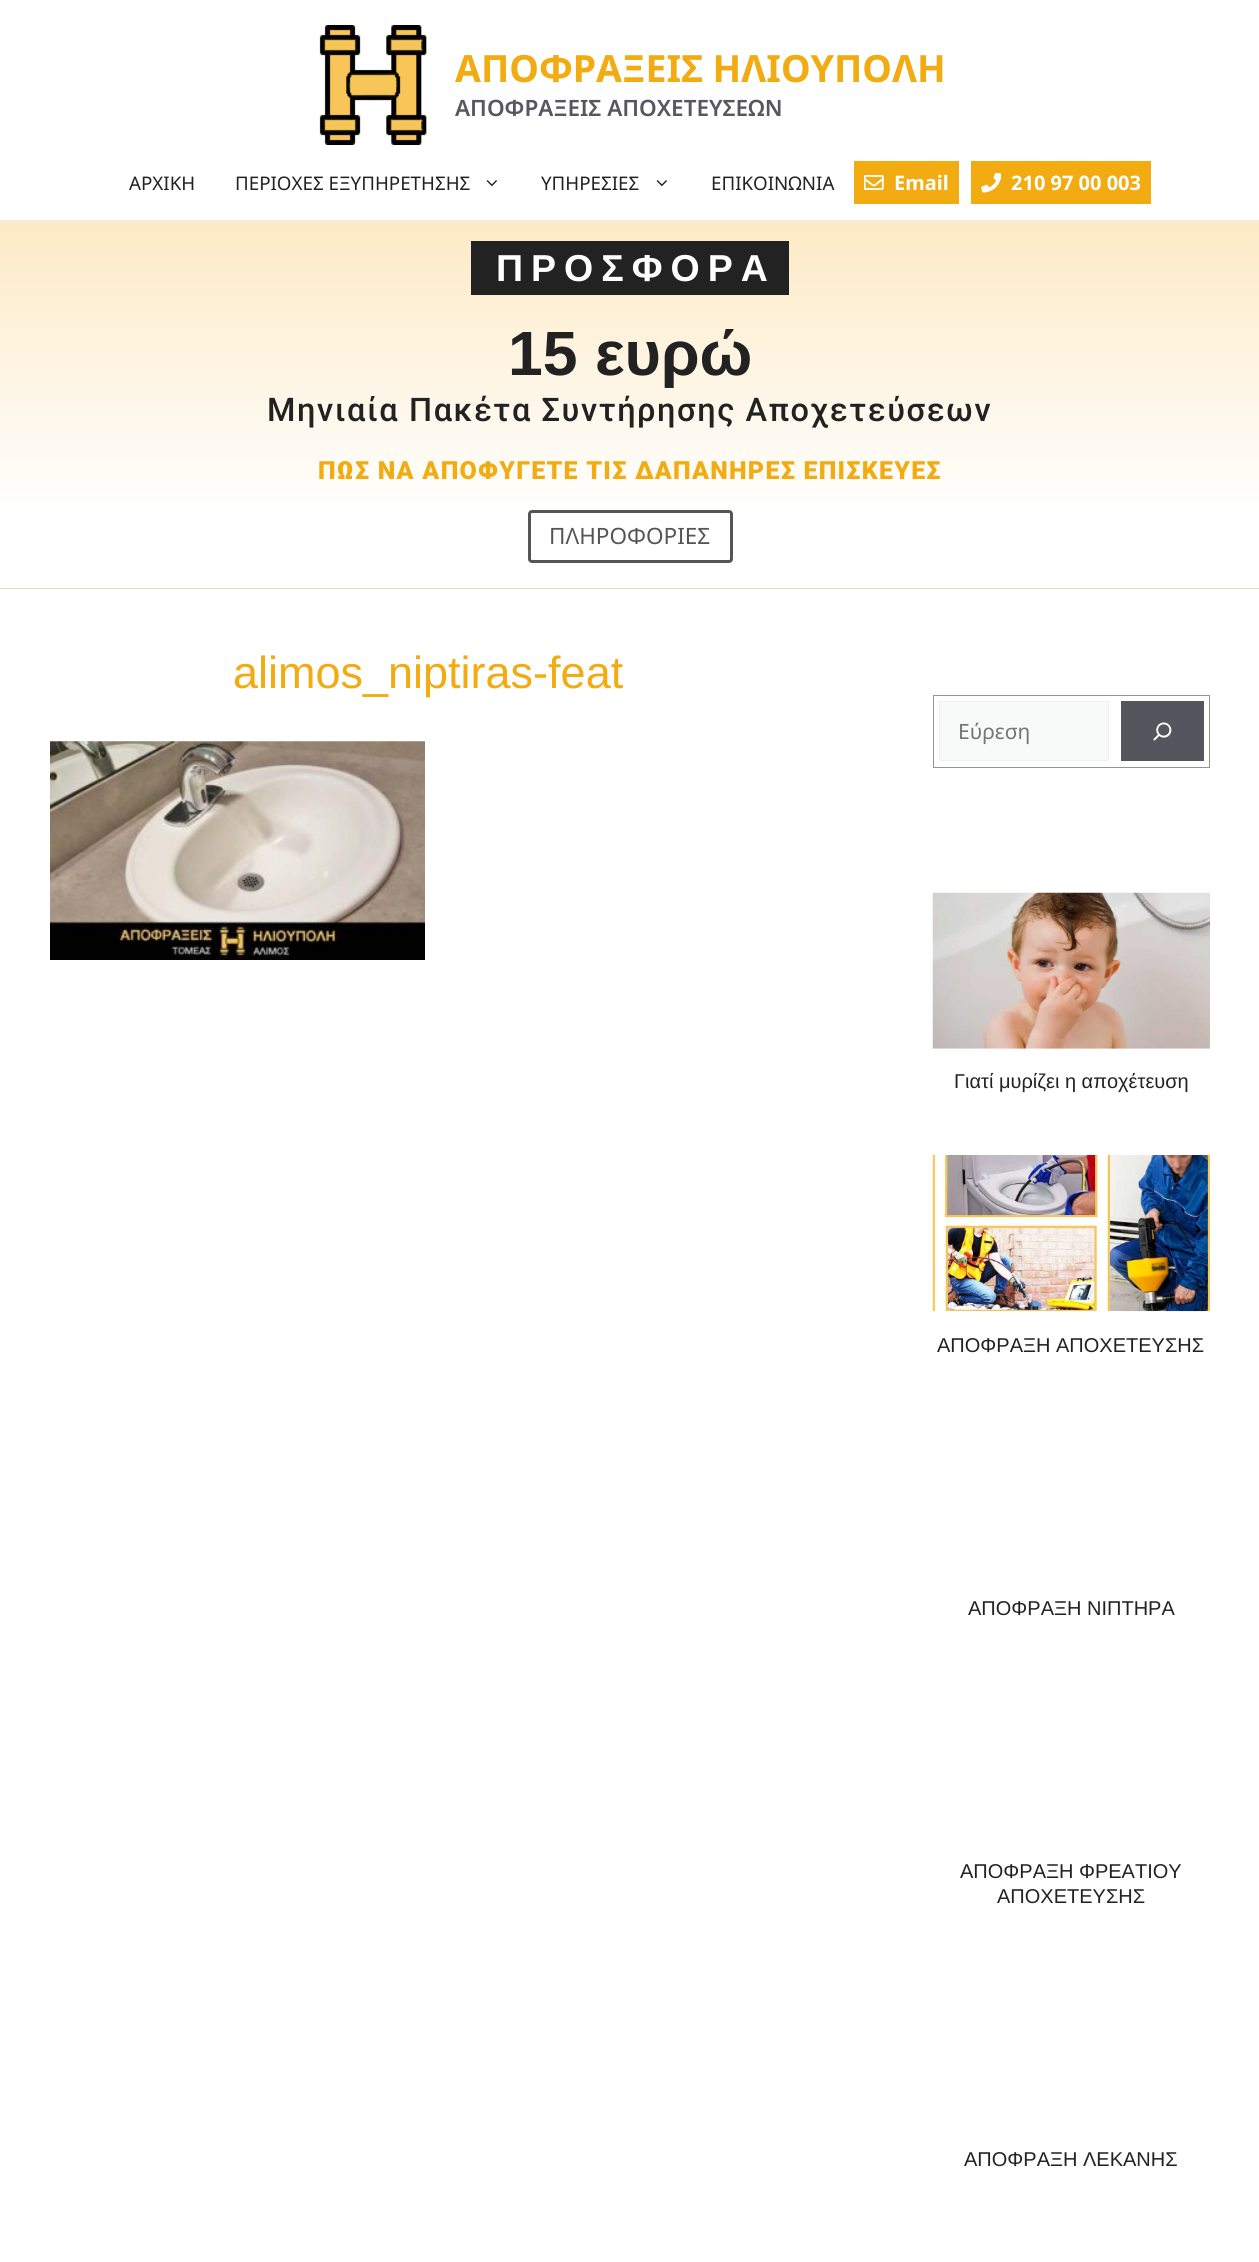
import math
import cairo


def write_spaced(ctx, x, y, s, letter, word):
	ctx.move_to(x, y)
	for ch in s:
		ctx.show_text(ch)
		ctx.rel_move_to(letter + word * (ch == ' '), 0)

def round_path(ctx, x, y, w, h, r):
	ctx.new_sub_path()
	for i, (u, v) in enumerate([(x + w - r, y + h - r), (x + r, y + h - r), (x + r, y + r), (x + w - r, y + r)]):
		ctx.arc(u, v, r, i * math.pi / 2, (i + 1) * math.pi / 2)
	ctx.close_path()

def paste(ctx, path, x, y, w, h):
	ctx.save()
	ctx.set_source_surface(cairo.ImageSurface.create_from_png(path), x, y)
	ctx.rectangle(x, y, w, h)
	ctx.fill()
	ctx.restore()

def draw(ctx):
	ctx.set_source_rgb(1, 1, 1)
	ctx.paint()
	paste(ctx, 'media/1.png', 319, 25, 108, 120)
	ctx.select_font_face('Noto Sans', cairo.FONT_SLANT_NORMAL, cairo.FONT_WEIGHT_BOLD)
	ctx.set_font_size(37.5)
	ctx.set_source_rgb(0.949, 0.671, 0.067)
	ctx.move_to(455, 82)
	ctx.show_text('ΑΠΟΦΡΑΞΕΙΣ ΗΛΙΟΥΠΟΛΗ')
	ctx.select_font_face('Noto Sans SemiBold')
	ctx.set_font_size(22.5)
	ctx.set_source_rgb(0.341, 0.341, 0.376)
	ctx.move_to(455, 116)
	ctx.show_text('ΑΠΟΦΡΑΞΕΙΣ ΑΠΟΧΕΤΕΥΣΕΩΝ')
	ctx.select_font_face('Noto Sans')
	ctx.set_font_size(18.75)
	ctx.set_source_rgb(0.133, 0.133, 0.133)
	ctx.move_to(129, 190)
	ctx.show_text('ΑΡΧΙΚΗ')
	ctx.move_to(235, 190)
	ctx.show_text('ΠΕΡΙΟΧΕΣ ΕΞΥΠΗΡΕΤΗΣΗΣ')
	paste(ctx, 'media/2.png', 486, 180, 11, 7)
	ctx.move_to(541, 190)
	ctx.show_text('ΥΠΗΡΕΣΙΕΣ')
	paste(ctx, 'media/2.png', 656, 180, 11, 7)
	ctx.move_to(711, 190)
	ctx.show_text('ΕΠΙΚΟΙΝΩΝΙΑ')
	ctx.set_source_rgb(0.949, 0.671, 0.067)
	ctx.rectangle(854, 161, 105, 43)
	ctx.fill()
	paste(ctx, 'media/3.png', 864, 175, 20, 15)
	ctx.select_font_face('Noto Sans', cairo.FONT_SLANT_NORMAL, cairo.FONT_WEIGHT_BOLD)
	ctx.set_font_size(20)
	ctx.set_source_rgb(1, 1, 1)
	ctx.move_to(894, 190)
	ctx.show_text('Email')
	ctx.set_source_rgb(0.949, 0.671, 0.067)
	ctx.rectangle(971, 161, 180, 43)
	ctx.fill()
	paste(ctx, 'media/4.png', 981, 173, 20, 20)
	ctx.set_source_rgb(1, 1, 1)
	ctx.move_to(1011, 190)
	ctx.show_text('210 97 00 003')
	gradient = cairo.LinearGradient(630, 588, 630, 221)
	gradient.add_color_stop_rgba(0.2, 1, 1, 1, 1)
	gradient.add_color_stop_rgba(1, 0.992, 0.918, 0.776, 1)
	ctx.set_source(gradient)
	ctx.rectangle(0, 221, 1259, 281)
	ctx.fill()
	ctx.set_source_rgb(0.925, 0.925, 0.925)
	ctx.rectangle(0, 220, 1259, 1)
	ctx.fill()
	ctx.set_source_rgb(0.918, 0.859, 0.741)
	ctx.rectangle(0, 588, 1259, 1)
	ctx.fill()
	ctx.set_source_rgb(0.133, 0.133, 0.133)
	ctx.rectangle(471, 241, 318, 54)
	ctx.fill()
	ctx.select_font_face('Liberation Sans', cairo.FONT_SLANT_NORMAL, cairo.FONT_WEIGHT_BOLD)
	ctx.set_font_size(37.5)
	ctx.set_source_rgb(1, 1, 1)
	write_spaced(ctx, 496, 281, 'ΠΡΟΣΦΟΡΑ', 8, 0)
	ctx.set_font_size(62.5)
	ctx.set_source_rgb(0.133, 0.133, 0.133)
	ctx.move_to(508, 375)
	ctx.show_text('15 ευρώ')
	ctx.select_font_face('Roboto Medium')
	ctx.set_font_size(32.5)
	write_spaced(ctx, 267, 421, 'Μηνιαία Πακέτα Συντήρησης Αποχετεύσεων', 1.6, 0)
	ctx.select_font_face('Roboto Black')
	ctx.set_font_size(25)
	ctx.set_source_rgb(0.949, 0.671, 0.067)
	write_spaced(ctx, 318, 479, 'ΠΩΣ ΝΑ ΑΠΟΦΥΓΕΤΕ ΤΙΣ ΔΑΠΑΝΗΡΕΣ ΕΠΙΣΚΕΥΕΣ', 1.25, 0)
	round_path(ctx, 529.5, 511.5, 202, 50, 2.5)
	ctx.set_source_rgb(0.333, 0.333, 0.333)
	ctx.set_line_width(3)
	ctx.stroke()
	ctx.select_font_face('Noto Sans')
	ctx.set_font_size(22.5)
	ctx.move_to(549, 544)
	ctx.show_text('ΠΛΗΡΟΦΟΡΙΕΣ')
	ctx.select_font_face('Liberation Sans')
	ctx.set_font_size(45)
	ctx.set_source_rgb(0.949, 0.671, 0.067)
	ctx.move_to(233, 688)
	ctx.show_text('alimos_niptiras-feat')
	paste(ctx, 'media/5.png', 50, 741, 375, 219)
	ctx.rectangle(933.5, 695.5, 276, 72)
	ctx.set_source_rgb(0.58, 0.58, 0.58)
	ctx.set_line_width(1)
	ctx.stroke()
	ctx.set_source_rgb(0.969, 0.973, 0.976)
	ctx.rectangle(939.5, 701.5, 169, 59)
	ctx.fill_preserve()
	ctx.set_source_rgb(0.941, 0.941, 0.941)
	ctx.stroke()
	ctx.select_font_face('Noto Sans')
	ctx.set_font_size(21)
	ctx.set_source_rgb(0.459, 0.459, 0.459)
	ctx.move_to(958, 739)
	ctx.show_text('Εύρεση')
	ctx.set_source_rgb(0.333, 0.333, 0.369)
	ctx.rectangle(1121, 701, 83, 60)
	ctx.fill()
	paste(ctx, 'media/6.png', 1153, 722, 19, 19)
	paste(ctx, 'media/7.png', 932, 892, 278, 157)
	ctx.select_font_face('Liberation Sans')
	ctx.set_font_size(20)
	ctx.set_source_rgb(0.133, 0.133, 0.133)
	ctx.move_to(954, 1088)
	ctx.show_text('Γιατί μυρίζει η αποχέτευση')
	paste(ctx, 'media/8.png', 932, 1155, 278, 157)
	for x, y, s in [
		(937, 1352, 'ΑΠΟΦΡΑΞΗ ΑΠΟΧΕΤΕΥΣΗΣ'),
		(968, 1615, 'ΑΠΟΦΡΑΞΗ ΝΙΠΤΗΡΑ'),
		(960, 1878, 'ΑΠΟΦΡΑΞΗ ΦΡΕΑΤΙΟΥ'),
		(997, 1903, 'ΑΠΟΧΕΤΕΥΣΗΣ'),
		(964, 2166, 'ΑΠΟΦΡΑΞΗ ΛΕΚΑΝΗΣ'),
	]:
		ctx.move_to(x, y)
		ctx.show_text(s)


surface = cairo.ImageSurface(cairo.FORMAT_RGB24, 1259, 2262)
ctx = cairo.Context(surface)
options = cairo.FontOptions()
options.set_hint_metrics(cairo.HINT_METRICS_OFF)
options.set_hint_style(cairo.HINT_STYLE_NONE)
ctx.set_font_options(options)
ctx.set_miter_limit(4)
draw(ctx)
surface.write_to_png('image.png')
